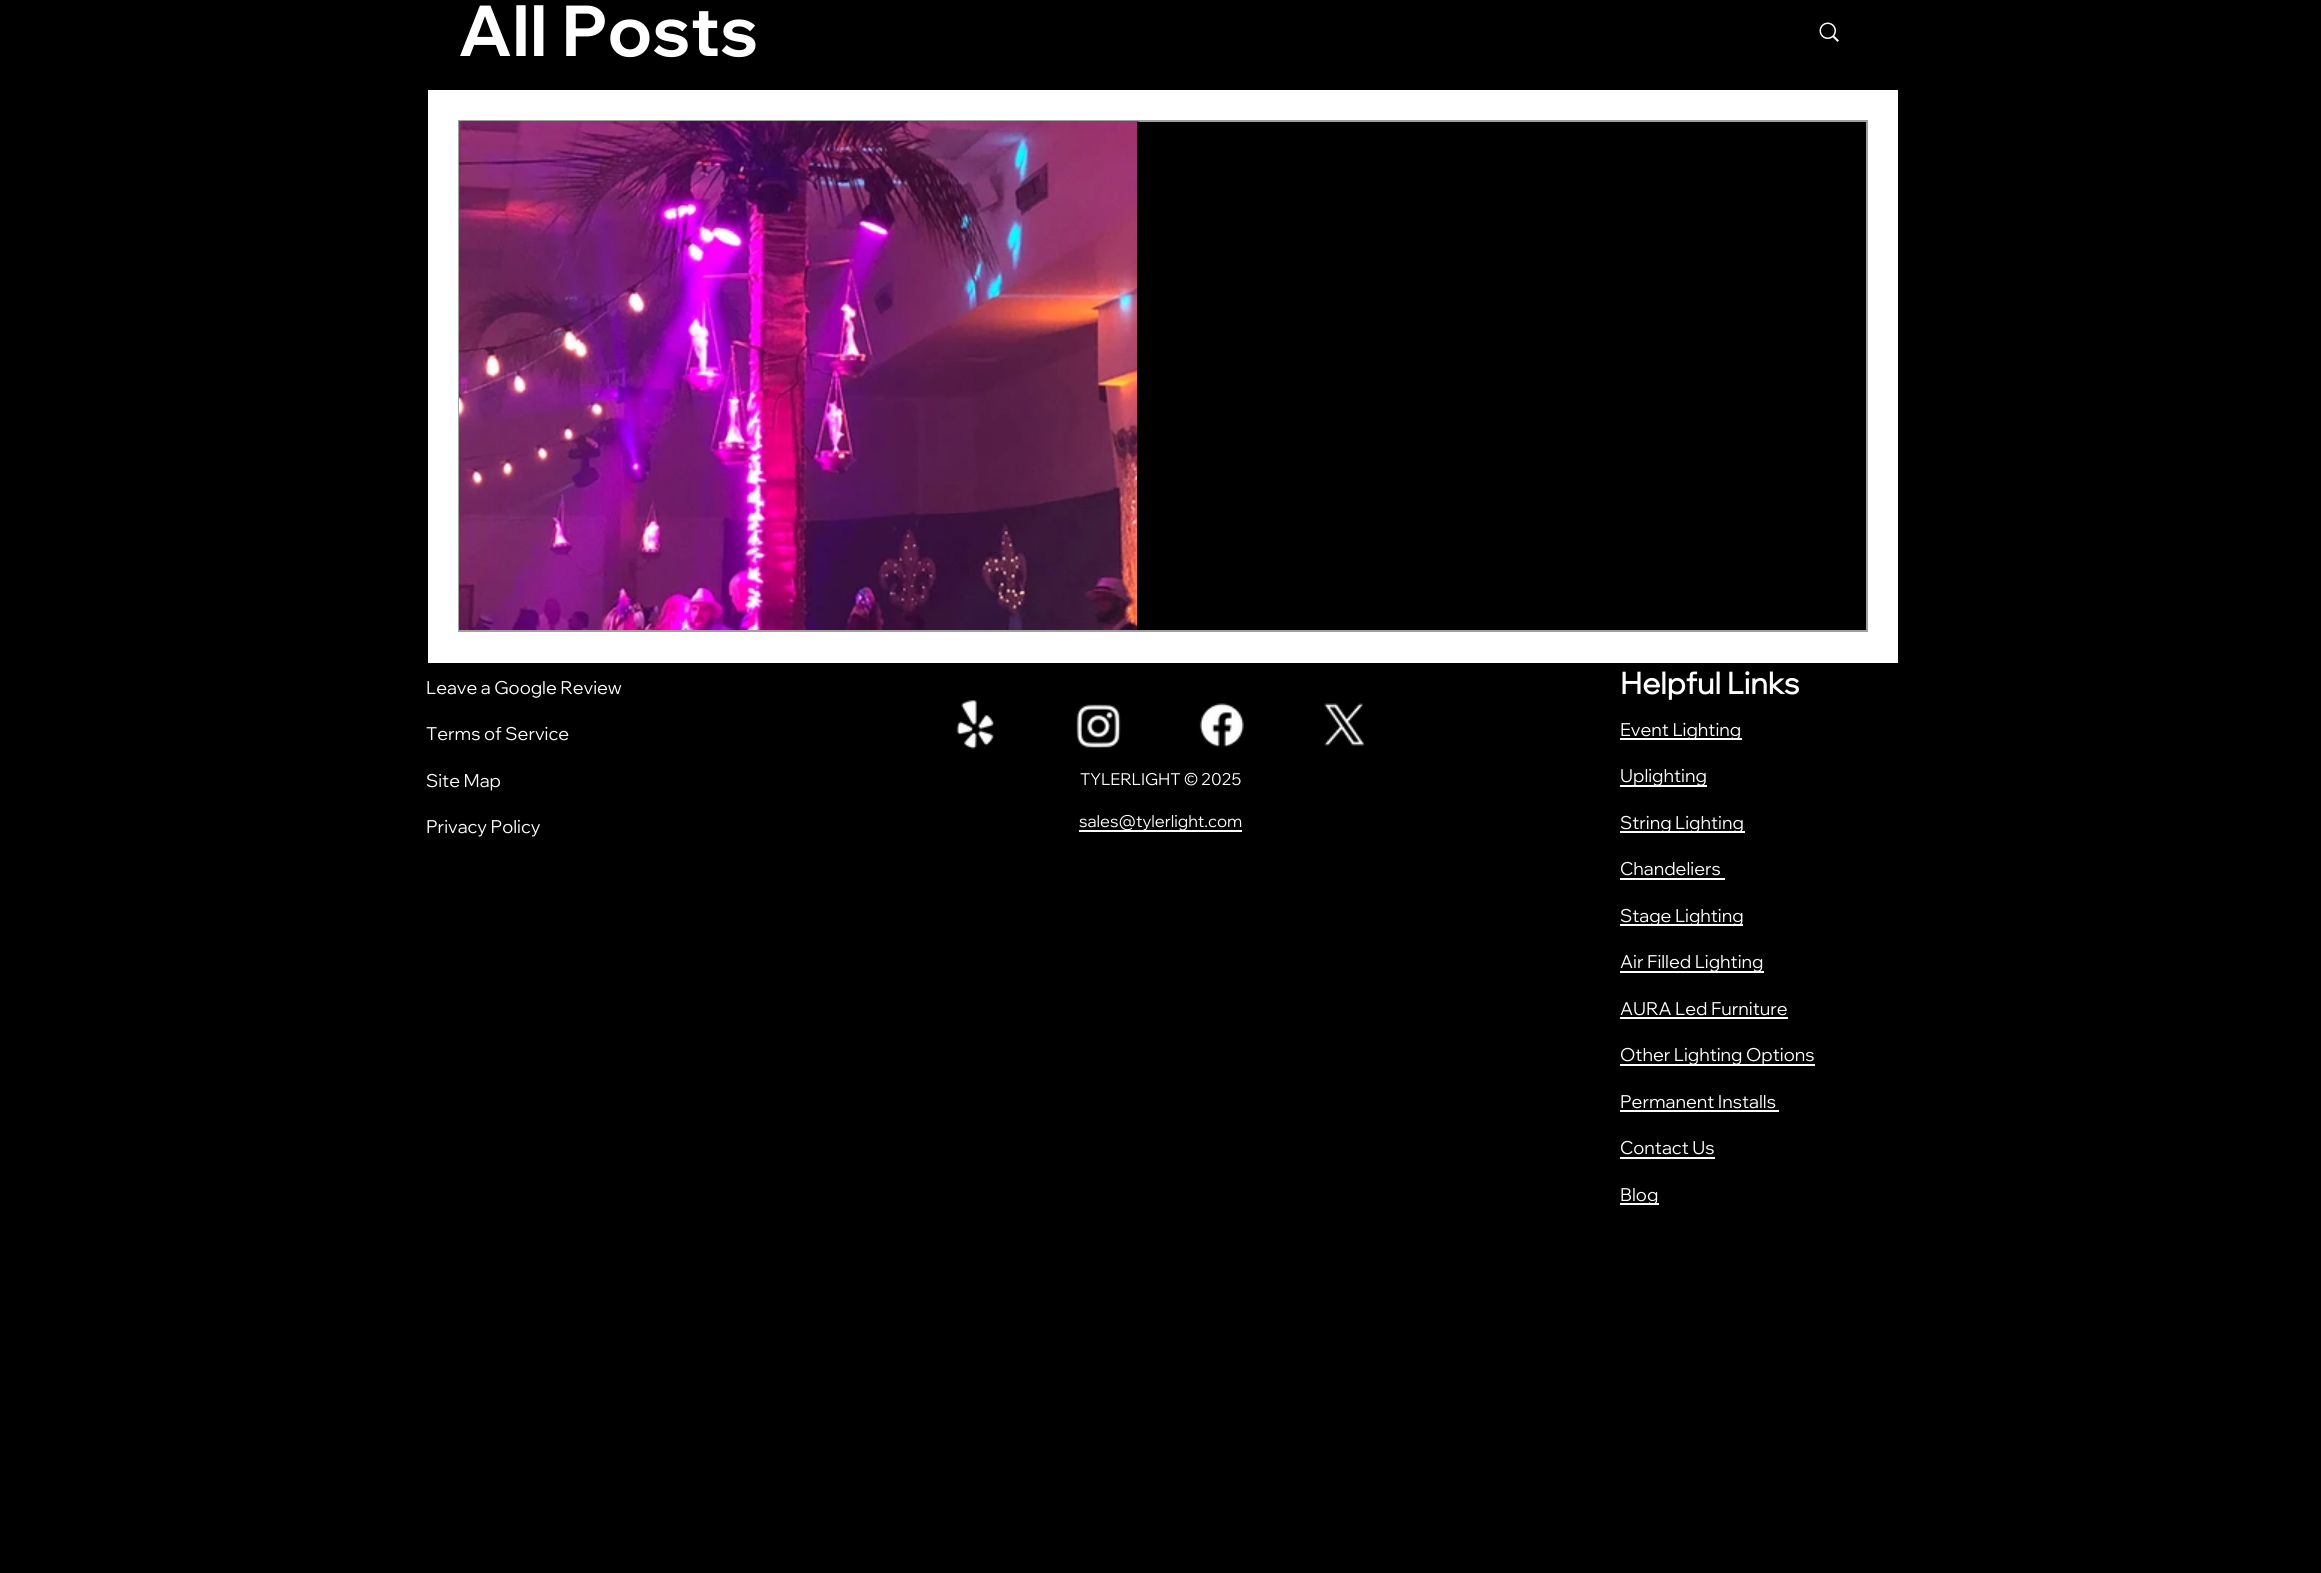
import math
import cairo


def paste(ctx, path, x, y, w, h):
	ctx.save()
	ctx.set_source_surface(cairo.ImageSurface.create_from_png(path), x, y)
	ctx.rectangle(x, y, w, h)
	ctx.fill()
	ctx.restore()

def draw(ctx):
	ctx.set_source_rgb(0, 0, 0)
	ctx.paint()
	ctx.set_source_rgb(1, 1, 1)
	ctx.rectangle(428, 90, 1470, 573)
	ctx.fill()
	ctx.select_font_face('Wix Madefor Display', cairo.FONT_SLANT_NORMAL, cairo.FONT_WEIGHT_BOLD)
	ctx.set_font_size(70.5)
	ctx.move_to(458, 56)
	ctx.show_text('All Posts')
	paste(ctx, 'media/1.png', 1819, 22, 20, 20)
	ctx.rectangle(459, 121, 1408, 510)
	ctx.set_source_rgb(0.627, 0.627, 0.624)
	ctx.stroke()
	paste(ctx, 'media/2.png', 459, 121, 680, 509)
	ctx.set_source_rgb(0, 0, 0)
	ctx.rectangle(1137, 122, 729, 508)
	ctx.fill()
	ctx.select_font_face('Wix Madefor Display')
	ctx.set_font_size(18)
	ctx.set_source_rgb(1, 1, 1)
	for x, y, s in [
		(426, 694, 'Leave a Google Review'),
		(426, 740, 'Terms of Service'),
		(426, 787, 'Site Map'),
		(426, 833, 'Privacy Policy'),
	]:
		ctx.move_to(x, y)
		ctx.show_text(s)
	paste(ctx, 'media/3.png', 956, 700, 38, 49)
	paste(ctx, 'media/4.png', 1076, 704, 45, 45)
	paste(ctx, 'media/5.png', 1199, 703, 45, 45)
	paste(ctx, 'media/6.png', 1324, 703, 41, 43)
	ctx.select_font_face('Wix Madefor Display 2', cairo.FONT_SLANT_NORMAL, cairo.FONT_WEIGHT_BOLD)
	ctx.set_font_size(30)
	ctx.move_to(1620, 694)
	ctx.show_text('Helpful Links')
	ctx.rectangle(1620, 738, 122, 2)
	ctx.fill()
	ctx.select_font_face('Wix Madefor Display')
	ctx.set_font_size(18)
	ctx.move_to(1620, 736)
	ctx.show_text('Event Lighting')
	ctx.rectangle(1620, 785, 87, 2)
	ctx.fill()
	ctx.move_to(1620, 782)
	ctx.show_text('Uplighting')
	ctx.rectangle(1620, 831, 125, 2)
	ctx.fill()
	ctx.move_to(1620, 829)
	ctx.show_text('String Lighting')
	ctx.move_to(1620, 875)
	ctx.show_text('Chandeliers')
	ctx.rectangle(1620, 878, 105, 2)
	ctx.fill()
	ctx.rectangle(1620, 924, 123, 2)
	ctx.fill()
	ctx.move_to(1620, 922)
	ctx.show_text('Stage Lighting')
	ctx.rectangle(1620, 971, 144, 2)
	ctx.fill()
	ctx.move_to(1620, 968)
	ctx.show_text('Air Filled Lighting')
	ctx.move_to(1620, 1015)
	ctx.show_text('AURA Led Furniture')
	ctx.rectangle(1620, 1017, 168, 2)
	ctx.fill()
	ctx.rectangle(1620, 1064, 195, 2)
	ctx.fill()
	ctx.move_to(1620, 1061)
	ctx.show_text('Other Lighting Options')
	ctx.move_to(1620, 1108)
	ctx.show_text('Permanent Installs')
	ctx.rectangle(1620, 1110, 159, 2)
	ctx.fill()
	ctx.move_to(1620, 1154)
	ctx.show_text('Contact Us')
	ctx.rectangle(1620, 1157, 95, 2)
	ctx.fill()
	ctx.rectangle(1620, 1203, 39, 2)
	ctx.fill()
	ctx.move_to(1620, 1201)
	ctx.show_text('Blog')
	ctx.set_font_size(16.5)
	ctx.move_to(1080, 785)
	ctx.show_text('TYLERLIGHT © 2025')
	ctx.rectangle(1079, 830, 163, 2)
	ctx.fill()
	ctx.move_to(1079, 827)
	ctx.show_text('sales@tylerlight.com')


surface = cairo.ImageSurface(cairo.FORMAT_RGB24, 2321, 1573)
ctx = cairo.Context(surface)
options = cairo.FontOptions()
options.set_hint_metrics(cairo.HINT_METRICS_OFF)
options.set_hint_style(cairo.HINT_STYLE_NONE)
ctx.set_font_options(options)
ctx.set_miter_limit(4)
draw(ctx)
surface.write_to_png('image.png')
